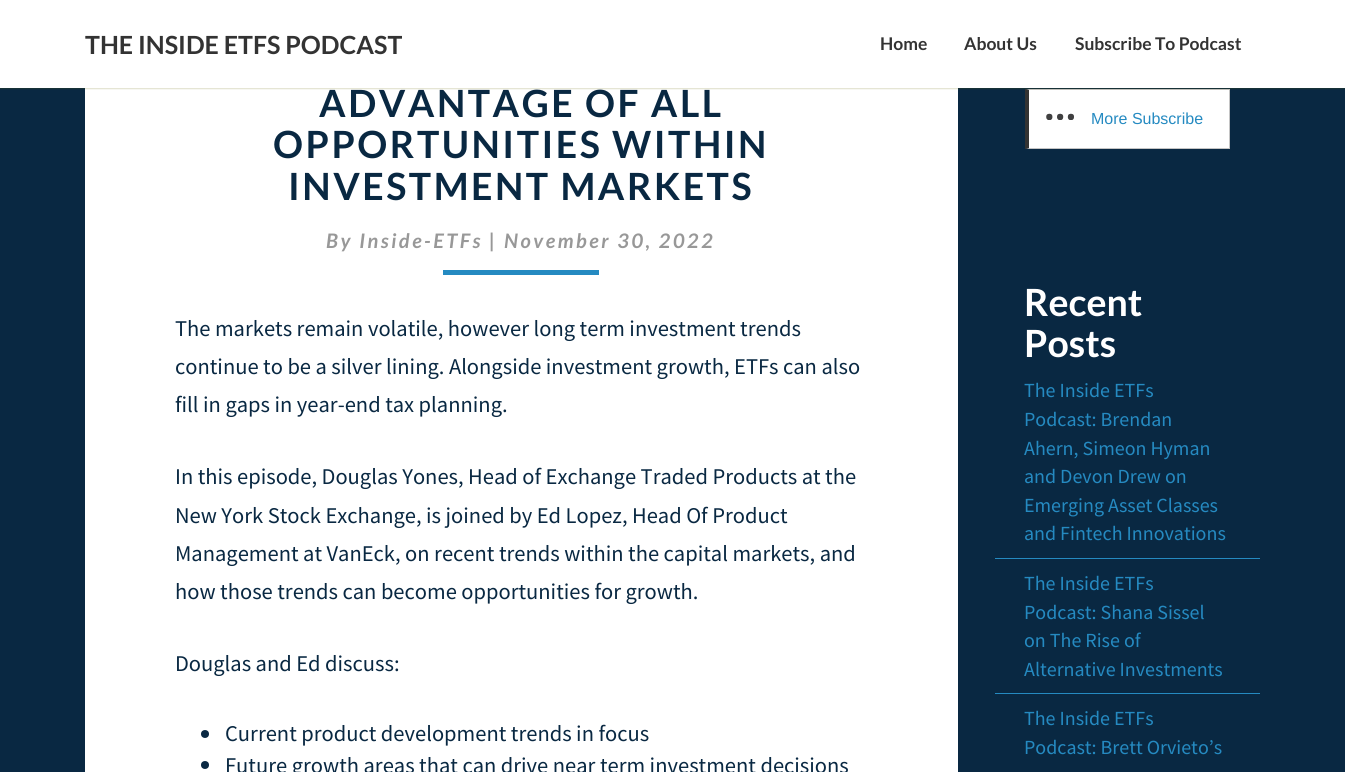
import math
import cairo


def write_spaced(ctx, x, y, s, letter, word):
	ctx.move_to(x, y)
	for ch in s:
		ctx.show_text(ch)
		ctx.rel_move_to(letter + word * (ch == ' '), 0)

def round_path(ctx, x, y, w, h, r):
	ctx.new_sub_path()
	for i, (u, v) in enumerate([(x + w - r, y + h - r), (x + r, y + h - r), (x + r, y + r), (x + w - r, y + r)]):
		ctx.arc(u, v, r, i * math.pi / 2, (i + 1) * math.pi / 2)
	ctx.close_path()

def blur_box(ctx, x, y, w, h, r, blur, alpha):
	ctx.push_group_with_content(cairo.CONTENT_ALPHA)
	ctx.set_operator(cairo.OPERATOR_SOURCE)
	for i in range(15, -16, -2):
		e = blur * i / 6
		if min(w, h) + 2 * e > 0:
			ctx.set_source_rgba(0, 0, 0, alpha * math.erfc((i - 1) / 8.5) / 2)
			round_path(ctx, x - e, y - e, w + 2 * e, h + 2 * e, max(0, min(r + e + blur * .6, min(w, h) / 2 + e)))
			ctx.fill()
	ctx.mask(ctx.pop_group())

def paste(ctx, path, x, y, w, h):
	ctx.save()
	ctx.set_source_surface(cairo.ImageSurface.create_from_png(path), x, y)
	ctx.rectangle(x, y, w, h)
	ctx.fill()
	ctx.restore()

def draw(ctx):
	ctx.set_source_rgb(0.039, 0.157, 0.259)
	ctx.paint()
	ctx.set_source_rgb(1, 1, 1)
	ctx.rectangle(85, 88, 873, 684)
	ctx.fill()
	ctx.rectangle(1029, 90, 200, 58)
	ctx.fill()
	ctx.set_source_rgb(0.769, 0.769, 0.769)
	ctx.new_path()
	ctx.move_to(1025, 89)
	ctx.line_to(1230, 89)
	ctx.line_to(1229, 90)
	ctx.line_to(1029, 90)
	ctx.close_path()
	ctx.fill()
	ctx.rectangle(1229, 89, 1, 60)
	ctx.fill()
	ctx.new_path()
	ctx.move_to(1230, 149)
	ctx.line_to(1025, 149)
	ctx.line_to(1029, 148)
	ctx.line_to(1229, 148)
	ctx.close_path()
	ctx.fill()
	ctx.set_source_rgb(0.2, 0.2, 0.2)
	ctx.new_path()
	ctx.move_to(1025, 149)
	ctx.line_to(1025, 89)
	ctx.line_to(1029, 90)
	ctx.line_to(1029, 148)
	ctx.close_path()
	ctx.fill()
	ctx.set_source_rgb(0.392, 0.392, 0)
	blur_box(ctx, 0, 1, 1345, 88, 0, 0.5, 0.2)
	ctx.set_source_rgb(1, 1, 1)
	ctx.rectangle(0, 0, 1345, 88)
	ctx.fill()
	ctx.select_font_face('Lato', cairo.FONT_SLANT_NORMAL, cairo.FONT_WEIGHT_BOLD)
	ctx.set_font_size(25)
	ctx.set_source_rgb(0.2, 0.2, 0.2)
	ctx.move_to(85, 54)
	ctx.show_text('THE INSIDE ETFS PODCAST')
	ctx.set_font_size(17.5)
	for x, y, s in [
		(880, 50, 'Home'),
		(964, 50, 'About Us'),
		(1075, 50, 'Subscribe To Podcast'),
	]:
		ctx.move_to(x, y)
		ctx.show_text(s)
	ctx.set_font_size(37.5)
	ctx.set_source_rgb(0.039, 0.157, 0.259)
	for x, y, s in [
		(319, 117, 'ADVANTAGE OF ALL'),
		(273, 158, 'OPPORTUNITIES WITHIN'),
		(288, 200, 'INVESTMENT MARKETS'),
	]:
		write_spaced(ctx, x, y, s, 2.5, 0)
	ctx.select_font_face('Lato', cairo.FONT_SLANT_ITALIC, cairo.FONT_WEIGHT_BOLD)
	ctx.set_font_size(20)
	ctx.set_source_rgb(0.596, 0.596, 0.596)
	write_spaced(ctx, 326, 248, 'By Inside-ETFs | November 30, 2022', 2.5, 0)
	ctx.set_source_rgb(0.145, 0.541, 0.757)
	ctx.rectangle(443, 270, 156, 5)
	ctx.fill()
	ctx.select_font_face('Source Sans Pro')
	ctx.set_font_size(22.5)
	ctx.set_source_rgb(0.039, 0.157, 0.259)
	for x, y, s in [
		(175, 336, 'The markets remain volatile, however long term investment trends'),
		(175, 374, 'continue to be a silver lining. Alongside investment growth, ETFs can also'),
		(175, 412, 'fill in gaps in year-end tax planning.'),
		(175, 484, 'In this episode, Douglas Yones, Head of Exchange Traded Products at the'),
		(175, 523, 'New York Stock Exchange, is joined by Ed Lopez, Head Of Product'),
		(175, 561, 'Management at VanEck, on recent trends within the capital markets, and'),
		(175, 599, 'how those trends can become opportunities for growth.'),
		(175, 671, 'Douglas and Ed discuss:'),
	]:
		ctx.move_to(x, y)
		ctx.show_text(s)
	ctx.new_path()
	ctx.arc(205, 734, 4, 0, 2 * math.pi)
	ctx.fill()
	ctx.move_to(225, 741)
	ctx.show_text('Current product development trends in focus')
	ctx.new_path()
	ctx.arc(205, 765, 4, 0, 2 * math.pi)
	ctx.fill()
	ctx.move_to(225, 773)
	ctx.show_text('Future growth areas that can drive near term investment decisions')
	paste(ctx, 'media/1.png', 1046, 113, 28, 7)
	ctx.select_font_face('Liberation Sans')
	ctx.set_font_size(16)
	ctx.set_source_rgb(0.145, 0.541, 0.757)
	ctx.move_to(1091, 124)
	ctx.show_text('More Subscribe')
	ctx.select_font_face('Lato', cairo.FONT_SLANT_NORMAL, cairo.FONT_WEIGHT_BOLD)
	ctx.set_font_size(37.5)
	ctx.set_source_rgb(1, 1, 1)
	ctx.move_to(1024, 316)
	ctx.show_text('Recent')
	ctx.move_to(1024, 357)
	ctx.show_text('Posts')
	ctx.set_source_rgb(0.145, 0.541, 0.757)
	ctx.rectangle(995, 558, 265, 1)
	ctx.fill()
	ctx.select_font_face('Source Sans Pro')
	ctx.set_font_size(20)
	for x, y, s in [
		(1024, 397, 'The Inside ETFs'),
		(1024, 426, 'Podcast: Brendan'),
		(1024, 455, 'Ahern, Simeon Hyman'),
		(1024, 483, 'and Devon Drew on'),
		(1024, 512, 'Emerging Asset Classes'),
		(1024, 540, 'and Fintech Innovations'),
	]:
		ctx.move_to(x, y)
		ctx.show_text(s)
	ctx.rectangle(995, 693, 265, 1)
	ctx.fill()
	for x, y, s in [
		(1024, 590, 'The Inside ETFs'),
		(1024, 619, 'Podcast: Shana Sissel'),
		(1024, 647, 'on The Rise of'),
		(1024, 676, 'Alternative Investments'),
		(1024, 725, 'The Inside ETFs'),
		(1024, 754, 'Podcast: Brett Orvieto’s'),
	]:
		ctx.move_to(x, y)
		ctx.show_text(s)


surface = cairo.ImageSurface(cairo.FORMAT_RGB24, 1345, 772)
ctx = cairo.Context(surface)
options = cairo.FontOptions()
options.set_hint_metrics(cairo.HINT_METRICS_OFF)
options.set_hint_style(cairo.HINT_STYLE_NONE)
ctx.set_font_options(options)
ctx.set_miter_limit(4)
draw(ctx)
surface.write_to_png('image.png')
